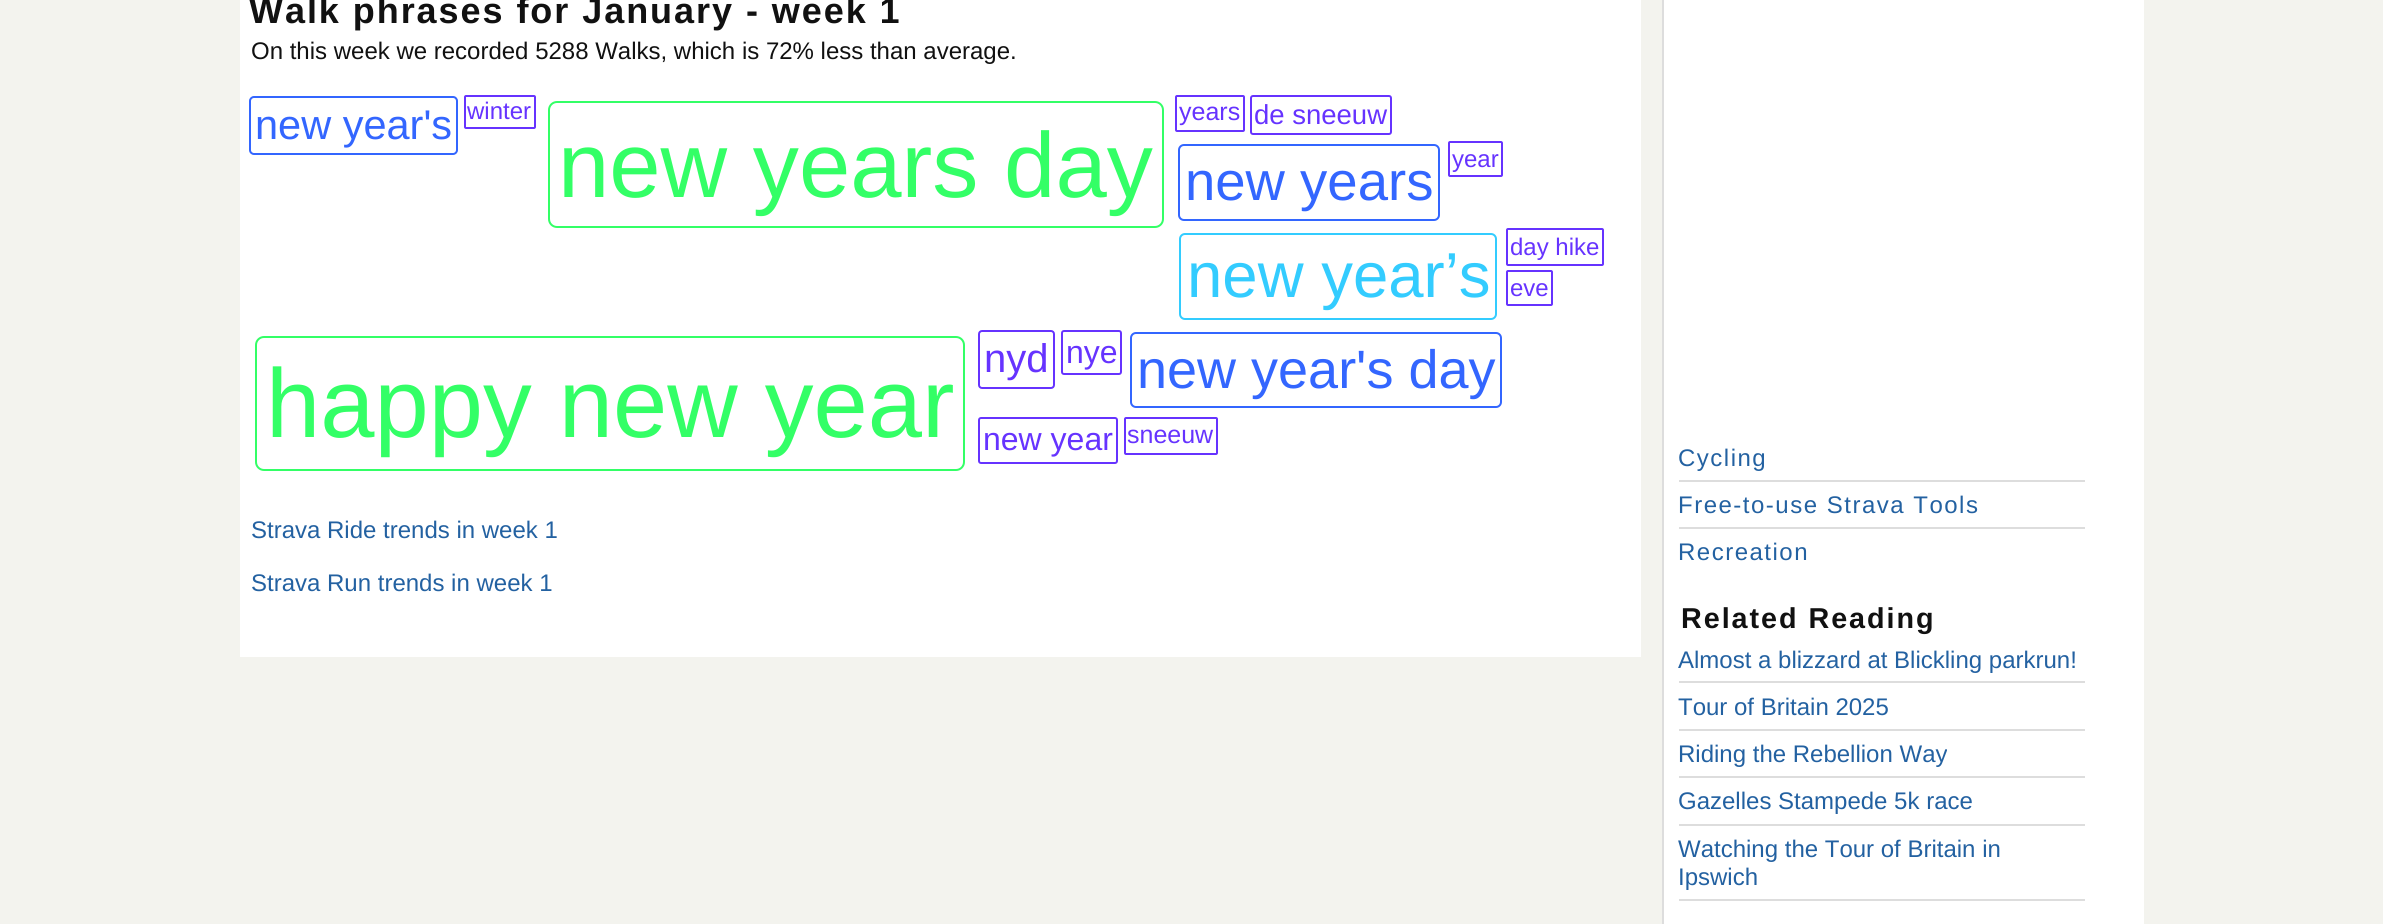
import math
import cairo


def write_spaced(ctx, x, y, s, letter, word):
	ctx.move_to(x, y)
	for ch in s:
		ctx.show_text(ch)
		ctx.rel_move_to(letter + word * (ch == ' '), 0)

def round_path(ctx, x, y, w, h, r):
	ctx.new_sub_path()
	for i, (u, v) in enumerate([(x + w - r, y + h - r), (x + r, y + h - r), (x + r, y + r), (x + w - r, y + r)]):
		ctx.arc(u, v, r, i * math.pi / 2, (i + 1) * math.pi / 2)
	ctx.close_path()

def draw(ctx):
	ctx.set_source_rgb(0.953, 0.953, 0.933)
	ctx.paint()
	ctx.set_source_rgb(1, 1, 1)
	ctx.rectangle(240, 0, 1401, 657)
	ctx.fill()
	ctx.select_font_face('Liberation Sans', cairo.FONT_SLANT_NORMAL, cairo.FONT_WEIGHT_BOLD)
	ctx.set_font_size(36)
	ctx.set_source_rgb(0.067, 0.067, 0.067)
	write_spaced(ctx, 249, 23, 'Walk phrases for January - week 1', 1.95, 0)
	ctx.select_font_face('Liberation Sans')
	ctx.set_font_size(24)
	ctx.move_to(251, 59)
	ctx.show_text('On this week we recorded 5288 Walks, which is 72% less than average.')
	round_path(ctx, 250, 97, 207, 57, 4)
	ctx.set_source_rgb(0.2, 0.4, 1)
	ctx.stroke()
	ctx.set_font_size(41.5)
	ctx.move_to(255, 139)
	ctx.show_text('new year\'s')
	round_path(ctx, 465, 96, 70, 32, 1)
	ctx.set_source_rgb(0.4, 0.2, 1)
	ctx.stroke()
	ctx.set_font_size(24)
	ctx.move_to(467, 119)
	ctx.show_text('winter')
	round_path(ctx, 549, 102, 614, 125, 8)
	ctx.set_source_rgb(0.2, 1, 0.4)
	ctx.stroke()
	ctx.set_font_size(92.25)
	ctx.move_to(558, 197)
	ctx.show_text('new years day')
	round_path(ctx, 1176, 96, 68, 35, 1)
	ctx.set_source_rgb(0.4, 0.2, 1)
	ctx.stroke()
	ctx.set_font_size(25)
	ctx.move_to(1179, 120)
	ctx.show_text('years')
	round_path(ctx, 1251, 96, 140, 38, 2)
	ctx.stroke()
	ctx.set_font_size(27.5)
	ctx.move_to(1254, 124)
	ctx.show_text('de sneeuw')
	round_path(ctx, 1449, 142, 53, 34, 1)
	ctx.stroke()
	ctx.set_font_size(24)
	ctx.move_to(1452, 167)
	ctx.show_text('year')
	round_path(ctx, 1179, 145, 260, 75, 5)
	ctx.set_source_rgb(0.2, 0.4, 1)
	ctx.stroke()
	ctx.set_font_size(54.5)
	ctx.move_to(1185, 200)
	ctx.show_text('new years')
	round_path(ctx, 1507, 229, 96, 36, 1)
	ctx.set_source_rgb(0.4, 0.2, 1)
	ctx.stroke()
	ctx.set_font_size(24)
	ctx.move_to(1510, 255)
	ctx.show_text('day hike')
	round_path(ctx, 1180, 234, 316, 85, 5)
	ctx.set_source_rgb(0.2, 0.8, 1)
	ctx.stroke()
	ctx.set_font_size(63.5)
	ctx.move_to(1187, 297)
	ctx.show_text('new year’s')
	round_path(ctx, 1507, 271, 45, 34, 1)
	ctx.set_source_rgb(0.4, 0.2, 1)
	ctx.stroke()
	ctx.set_font_size(24)
	ctx.move_to(1510, 296)
	ctx.show_text('eve')
	round_path(ctx, 256, 337, 708, 133, 8)
	ctx.set_source_rgb(0.2, 1, 0.4)
	ctx.stroke()
	ctx.set_font_size(97.5)
	ctx.move_to(266, 437)
	ctx.show_text('happy new year')
	round_path(ctx, 979, 331, 75, 57, 3)
	ctx.set_source_rgb(0.4, 0.2, 1)
	ctx.stroke()
	ctx.set_font_size(40)
	ctx.move_to(984, 372)
	ctx.show_text('nyd')
	round_path(ctx, 1062, 331, 59, 43, 2)
	ctx.stroke()
	ctx.set_font_size(32)
	ctx.move_to(1066, 363)
	ctx.show_text('nye')
	round_path(ctx, 1131, 333, 370, 74, 5)
	ctx.set_source_rgb(0.2, 0.4, 1)
	ctx.stroke()
	ctx.set_font_size(54)
	ctx.move_to(1137, 388)
	ctx.show_text('new year\'s day')
	round_path(ctx, 979, 418, 138, 45, 2)
	ctx.set_source_rgb(0.4, 0.2, 1)
	ctx.stroke()
	ctx.set_font_size(32)
	ctx.move_to(983, 450)
	ctx.show_text('new year')
	round_path(ctx, 1125, 418, 92, 36, 1)
	ctx.stroke()
	ctx.set_font_size(25)
	ctx.move_to(1127, 443)
	ctx.show_text('sneeuw')
	ctx.set_font_size(24)
	ctx.set_source_rgb(0.137, 0.38, 0.631)
	ctx.move_to(251, 538)
	ctx.show_text('Strava Ride trends in week 1')
	ctx.move_to(251, 591)
	ctx.show_text('Strava Run trends in week 1')
	ctx.set_source_rgb(1, 1, 1)
	ctx.rectangle(1664, 0, 480, 924)
	ctx.fill()
	ctx.set_source_rgb(0.867, 0.867, 0.867)
	ctx.rectangle(1662, 0, 2, 924)
	ctx.rectangle(1679, 480, 406, 2)
	ctx.fill()
	ctx.set_source_rgb(0.137, 0.38, 0.631)
	write_spaced(ctx, 1678, 466, 'Cycling', 1.5, 0)
	ctx.set_source_rgb(0.867, 0.867, 0.867)
	ctx.rectangle(1679, 527, 406, 2)
	ctx.fill()
	ctx.set_source_rgb(0.137, 0.38, 0.631)
	write_spaced(ctx, 1678, 513, 'Free-to-use Strava Tools', 1.5, 0)
	write_spaced(ctx, 1678, 560, 'Recreation', 1.5, 0)
	ctx.select_font_face('Liberation Sans', cairo.FONT_SLANT_NORMAL, cairo.FONT_WEIGHT_BOLD)
	ctx.set_font_size(28.75)
	ctx.set_source_rgb(0.067, 0.067, 0.067)
	write_spaced(ctx, 1681, 628, 'Related Reading', 1.95, 0)
	ctx.set_source_rgb(0.867, 0.867, 0.867)
	ctx.rectangle(1679, 681, 406, 2)
	ctx.fill()
	ctx.select_font_face('Liberation Sans')
	ctx.set_font_size(24)
	ctx.set_source_rgb(0.137, 0.38, 0.631)
	ctx.move_to(1678, 668)
	ctx.show_text('Almost a blizzard at Blickling parkrun!')
	ctx.set_source_rgb(0.867, 0.867, 0.867)
	ctx.rectangle(1679, 729, 406, 2)
	ctx.fill()
	ctx.set_source_rgb(0.137, 0.38, 0.631)
	ctx.move_to(1678, 715)
	ctx.show_text('Tour of Britain 2025')
	ctx.set_source_rgb(0.867, 0.867, 0.867)
	ctx.rectangle(1679, 776, 406, 2)
	ctx.fill()
	ctx.set_source_rgb(0.137, 0.38, 0.631)
	ctx.move_to(1678, 762)
	ctx.show_text('Riding the Rebellion Way')
	ctx.set_source_rgb(0.867, 0.867, 0.867)
	ctx.rectangle(1679, 824, 406, 2)
	ctx.fill()
	ctx.set_source_rgb(0.137, 0.38, 0.631)
	ctx.move_to(1678, 809)
	ctx.show_text('Gazelles Stampede 5k race')
	ctx.set_source_rgb(0.867, 0.867, 0.867)
	ctx.rectangle(1679, 899, 406, 2)
	ctx.fill()
	ctx.set_source_rgb(0.137, 0.38, 0.631)
	ctx.move_to(1678, 857)
	ctx.show_text('Watching the Tour of Britain in')
	ctx.move_to(1678, 885)
	ctx.show_text('Ipswich')


surface = cairo.ImageSurface(cairo.FORMAT_RGB24, 2383, 924)
ctx = cairo.Context(surface)
options = cairo.FontOptions()
options.set_hint_metrics(cairo.HINT_METRICS_OFF)
options.set_hint_style(cairo.HINT_STYLE_NONE)
ctx.set_font_options(options)
ctx.set_miter_limit(4)
draw(ctx)
surface.write_to_png('image.png')
